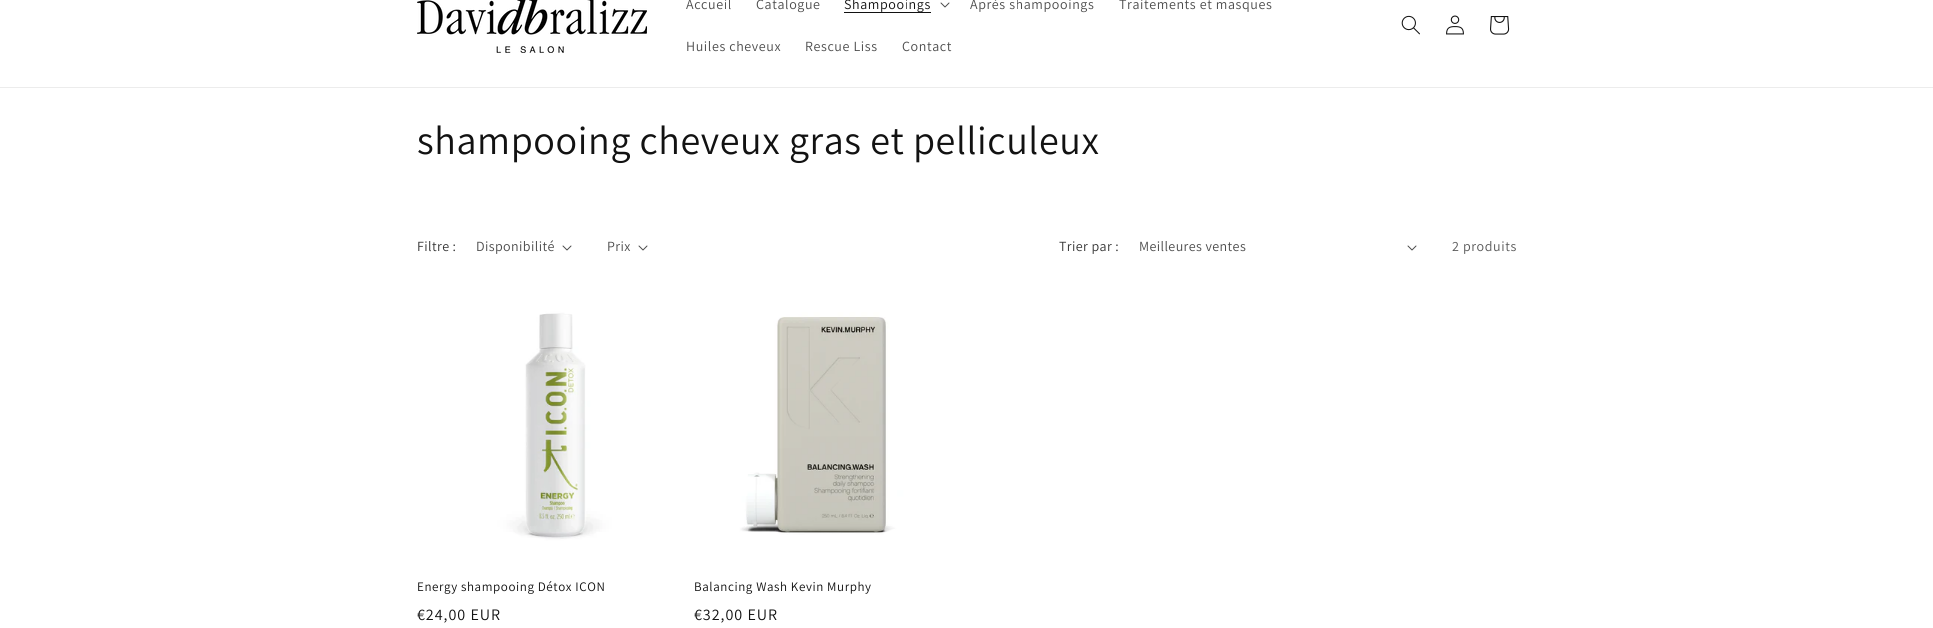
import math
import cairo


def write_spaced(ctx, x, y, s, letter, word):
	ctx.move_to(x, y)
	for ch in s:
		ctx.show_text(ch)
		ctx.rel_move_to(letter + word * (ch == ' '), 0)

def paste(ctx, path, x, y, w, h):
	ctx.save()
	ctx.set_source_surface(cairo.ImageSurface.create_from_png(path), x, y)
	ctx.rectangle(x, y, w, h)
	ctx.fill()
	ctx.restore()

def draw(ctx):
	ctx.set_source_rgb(1, 1, 1)
	ctx.paint()
	ctx.set_source_rgb(0.925, 0.925, 0.925)
	ctx.rectangle(0, 87, 1933, 1)
	ctx.fill()
	paste(ctx, 'media/1.png', 417, 0, 230, 53)
	ctx.select_font_face('Assistant')
	ctx.set_font_size(14)
	ctx.set_source_rgb(0.302, 0.302, 0.302)
	write_spaced(ctx, 686, 9, 'Accueil', 0.6, 0)
	write_spaced(ctx, 756, 9, 'Catalogue', 0.6, 0)
	ctx.set_source_rgb(0.071, 0.071, 0.071)
	ctx.rectangle(844, 12, 87, 1)
	ctx.fill()
	write_spaced(ctx, 844, 9, 'Shampooings', 0.6, 0)
	paste(ctx, 'media/2.png', 940, 2, 10, 6)
	ctx.set_source_rgb(0.302, 0.302, 0.302)
	for x, y, s in [
		(970, 9, 'Après shampooings'),
		(1119, 9, 'Traitements et masques'),
		(686, 51, 'Huiles cheveux'),
		(805, 51, 'Rescue Liss'),
		(902, 51, 'Contact'),
	]:
		write_spaced(ctx, x, y, s, 0.6, 0)
	paste(ctx, 'media/3.png', 1401, 15, 19, 20)
	paste(ctx, 'media/4.png', 1446, 15, 18, 20)
	paste(ctx, 'media/5.png', 1490, 16, 20, 19)
	ctx.set_font_size(40)
	ctx.set_source_rgb(0.071, 0.071, 0.071)
	write_spaced(ctx, 417, 154, 'shampooing cheveux gras et pelliculeux', 0.6, 0)
	ctx.set_font_size(14)
	ctx.set_source_rgb(0.212, 0.212, 0.212)
	write_spaced(ctx, 417, 251, 'Filtre :', 0.4, 0)
	ctx.set_source_rgb(0.302, 0.302, 0.302)
	write_spaced(ctx, 476, 251, 'Disponibilité', 0.4, 0)
	paste(ctx, 'media/2.png', 562, 245, 10, 6)
	write_spaced(ctx, 607, 251, 'Prix', 0.4, 0)
	paste(ctx, 'media/2.png', 638, 245, 10, 6)
	ctx.set_source_rgb(0.212, 0.212, 0.212)
	write_spaced(ctx, 1059, 251, 'Trier par :', 0.4, 0)
	ctx.set_source_rgb(0.302, 0.302, 0.302)
	write_spaced(ctx, 1139, 251, 'Meilleures ventes', 0.4, 0)
	paste(ctx, 'media/2.png', 1407, 245, 10, 6)
	ctx.set_source_rgb(0.349, 0.349, 0.349)
	write_spaced(ctx, 1452, 251, '2 produits', 0.6, 0)
	paste(ctx, 'media/6.png', 417, 293, 269, 269)
	ctx.set_font_size(13)
	ctx.set_source_rgb(0.071, 0.071, 0.071)
	write_spaced(ctx, 417, 591, 'Energy shampooing Détox ICON', 0.6, 0)
	ctx.set_font_size(16)
	write_spaced(ctx, 417, 620, '€24,00 EUR', 1, 0)
	paste(ctx, 'media/7.png', 694, 293, 269, 269)
	ctx.set_font_size(13)
	write_spaced(ctx, 694, 591, 'Balancing Wash Kevin Murphy', 0.6, 0)
	ctx.set_font_size(16)
	write_spaced(ctx, 694, 620, '€32,00 EUR', 1, 0)


surface = cairo.ImageSurface(cairo.FORMAT_RGB24, 1933, 628)
ctx = cairo.Context(surface)
options = cairo.FontOptions()
options.set_hint_metrics(cairo.HINT_METRICS_OFF)
options.set_hint_style(cairo.HINT_STYLE_NONE)
ctx.set_font_options(options)
ctx.set_miter_limit(4)
draw(ctx)
surface.write_to_png('image.png')
